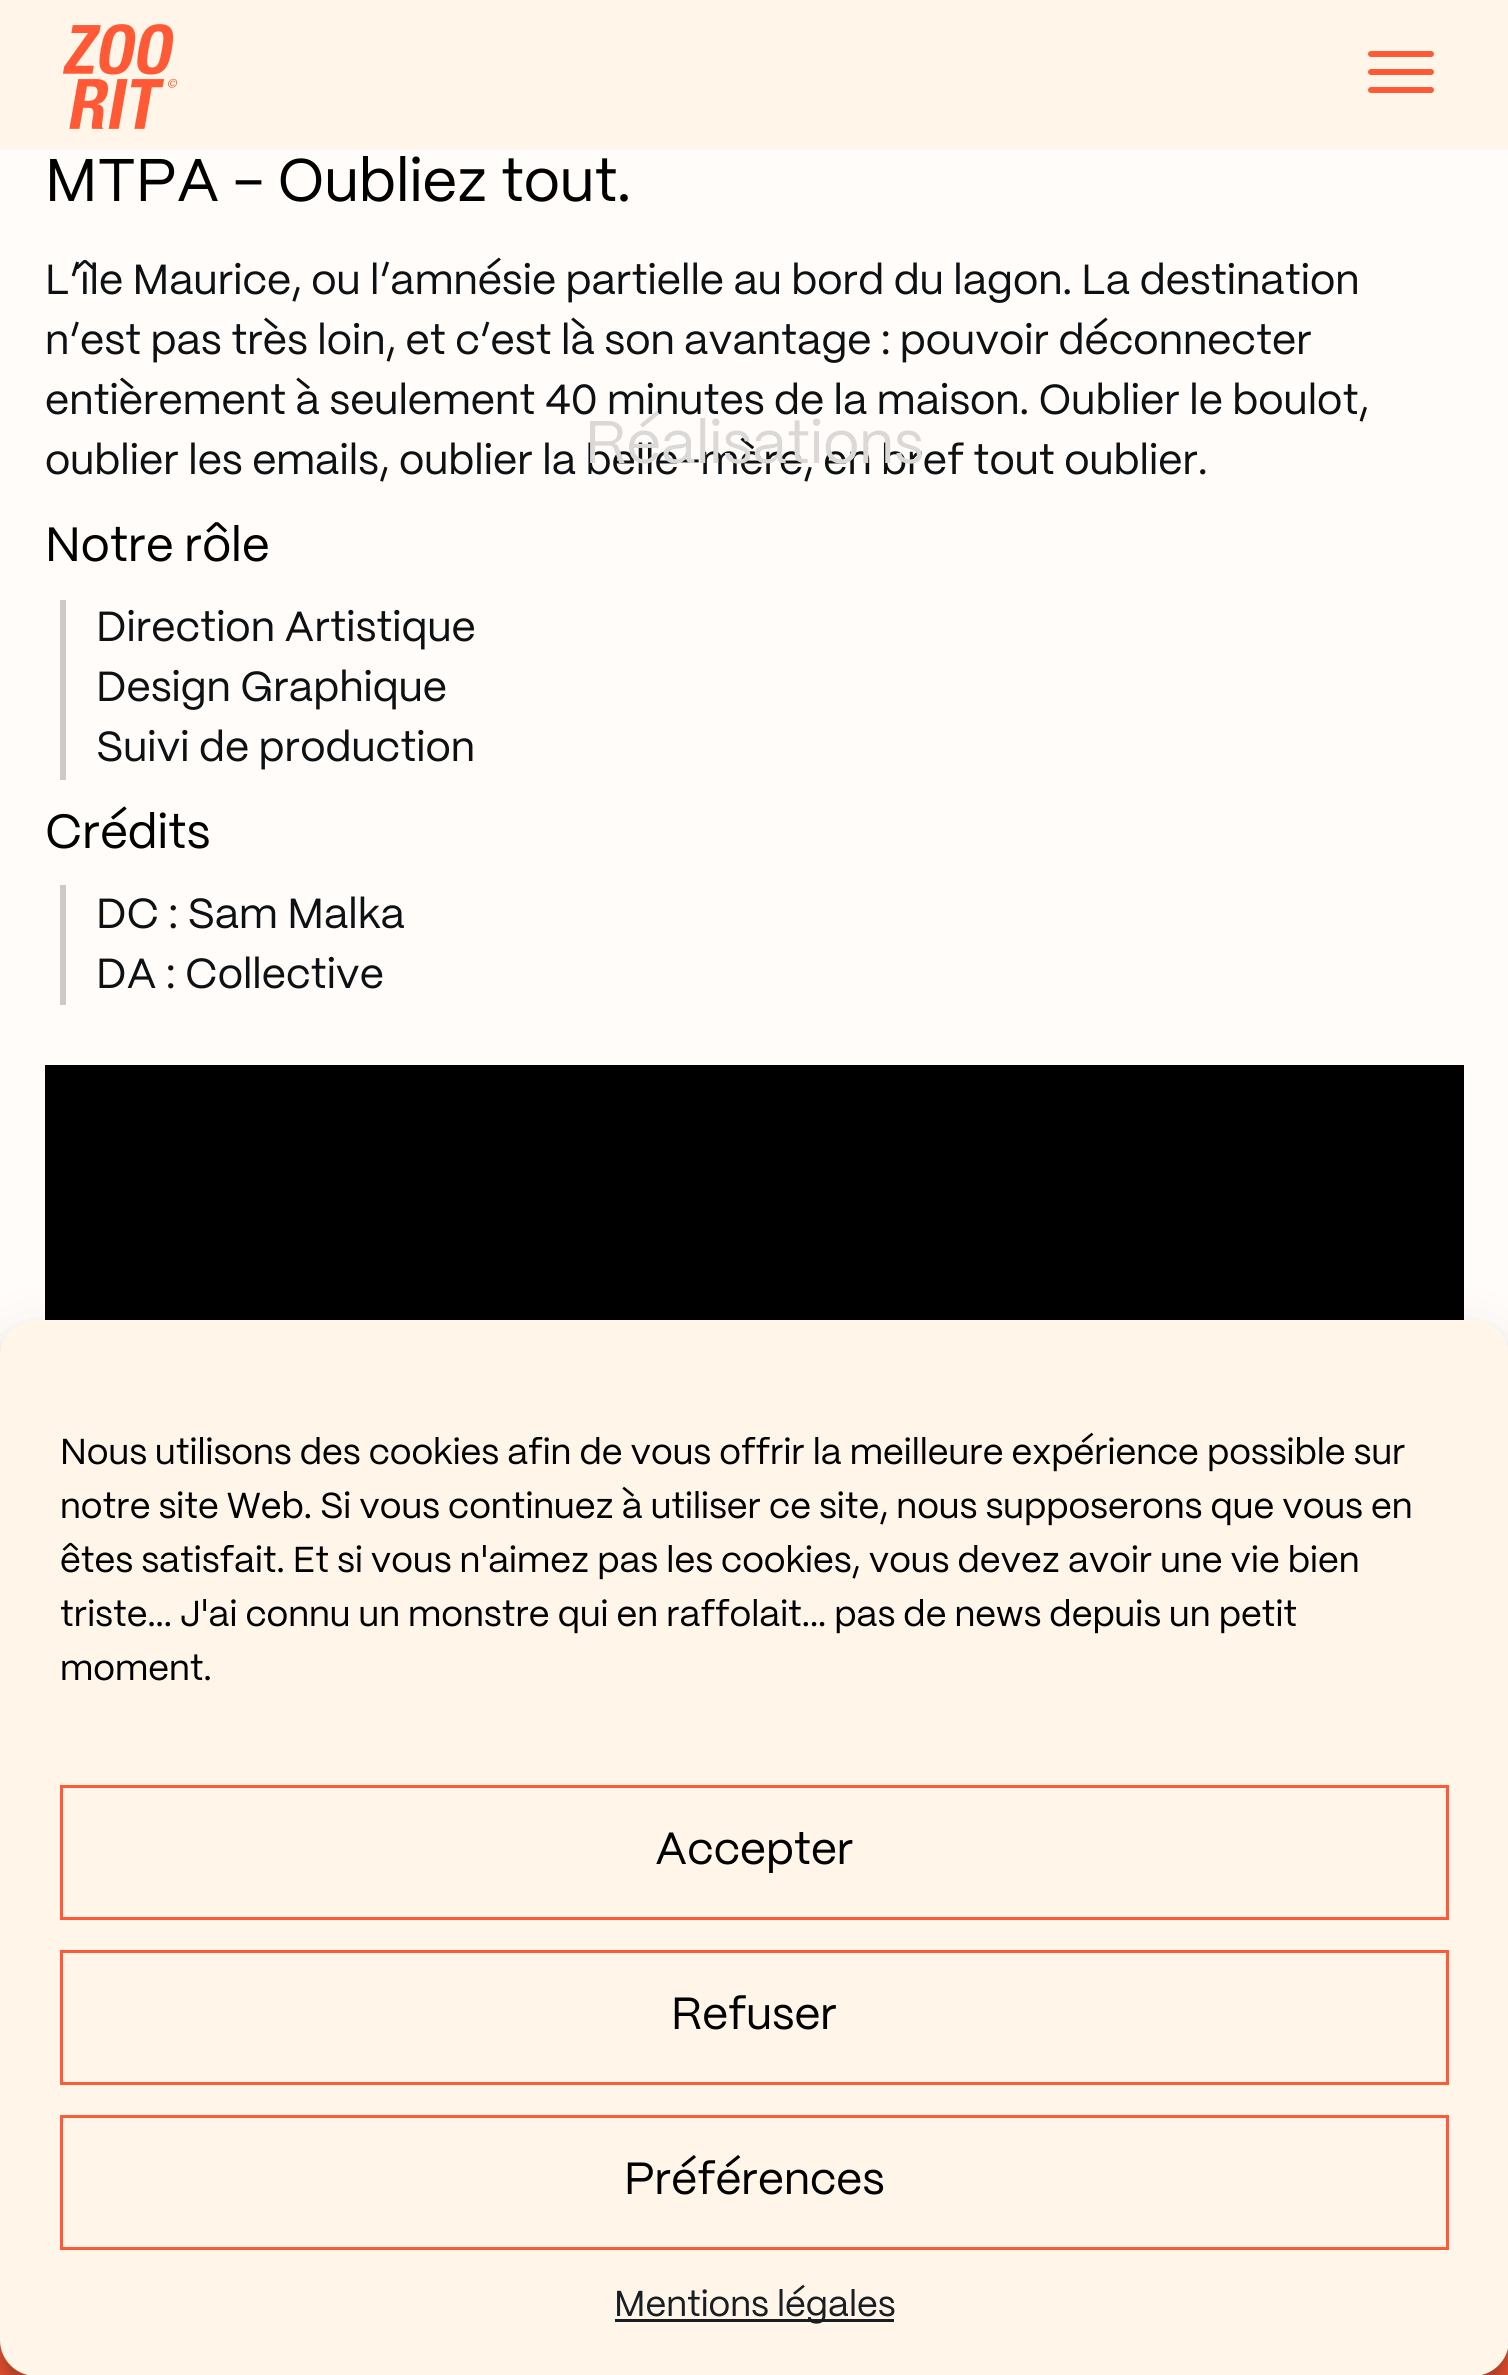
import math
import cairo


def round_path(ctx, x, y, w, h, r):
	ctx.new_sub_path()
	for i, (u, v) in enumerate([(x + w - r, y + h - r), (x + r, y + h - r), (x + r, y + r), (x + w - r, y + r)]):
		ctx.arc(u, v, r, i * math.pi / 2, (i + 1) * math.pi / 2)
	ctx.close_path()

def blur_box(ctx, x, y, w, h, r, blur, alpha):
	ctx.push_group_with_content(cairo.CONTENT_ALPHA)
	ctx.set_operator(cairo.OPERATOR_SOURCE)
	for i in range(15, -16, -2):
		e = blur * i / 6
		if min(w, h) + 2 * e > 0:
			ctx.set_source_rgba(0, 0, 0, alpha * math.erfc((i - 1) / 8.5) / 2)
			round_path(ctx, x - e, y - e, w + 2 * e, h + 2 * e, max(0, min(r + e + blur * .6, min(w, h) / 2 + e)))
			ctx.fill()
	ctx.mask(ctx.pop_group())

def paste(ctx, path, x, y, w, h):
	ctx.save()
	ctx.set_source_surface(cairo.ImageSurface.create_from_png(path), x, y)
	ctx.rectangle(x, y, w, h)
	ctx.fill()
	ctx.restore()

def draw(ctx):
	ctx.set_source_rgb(1, 0.988, 0.98)
	ctx.paint()
	ctx.select_font_face('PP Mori')
	ctx.set_font_size(60)
	ctx.set_source_rgb(0, 0, 0)
	ctx.move_to(45, 201)
	ctx.show_text('MTPA - Oubliez tout.')
	ctx.set_font_size(42)
	ctx.set_source_rgb(0.055, 0.067, 0.078)
	for x, y, s in [
		(45, 294, 'L’île Maurice, ou l’amnésie partielle au bord du lagon. La destination'),
		(45, 354, 'n’est pas très loin, et c’est là son avantage : pouvoir déconnecter'),
		(45, 414, 'entièrement à seulement 40 minutes de la maison. Oublier le boulot,'),
		(45, 474, 'oublier les emails, oublier la belle-mère, en bref tout oublier.'),
	]:
		ctx.move_to(x, y)
		ctx.show_text(s)
	ctx.set_font_size(48)
	ctx.set_source_rgb(0, 0, 0)
	ctx.move_to(45, 561)
	ctx.show_text('Notre rôle')
	ctx.set_source_rgb(0.8, 0.792, 0.784)
	ctx.rectangle(60, 600, 6, 180)
	ctx.fill()
	ctx.set_font_size(42)
	ctx.set_source_rgb(0.055, 0.067, 0.078)
	for x, y, s in [
		(96, 641, 'Direction Artistique'),
		(96, 701, 'Design Graphique'),
		(96, 761, 'Suivi de production'),
	]:
		ctx.move_to(x, y)
		ctx.show_text(s)
	ctx.set_font_size(48)
	ctx.set_source_rgb(0, 0, 0)
	ctx.move_to(45, 848)
	ctx.show_text('Crédits')
	ctx.set_source_rgb(0.8, 0.792, 0.784)
	ctx.rectangle(60, 885, 6, 120)
	ctx.fill()
	ctx.set_font_size(42)
	ctx.set_source_rgb(0.055, 0.067, 0.078)
	ctx.move_to(96, 928)
	ctx.show_text('DC : Sam Malka')
	ctx.move_to(96, 988)
	ctx.show_text('DA : Collective')
	paste(ctx, 'media/1.png', 45, 1065, 1419, 255)
	ctx.set_source_rgb(1, 0.349, 0.208)
	ctx.rectangle(0, 2340, 1508, 35)
	ctx.fill()
	ctx.set_source_rgb(1, 0.961, 0.914)
	ctx.rectangle(0, 0, 1508, 150)
	ctx.fill()
	paste(ctx, 'media/2.png', 63, 24, 115, 105)
	ctx.set_source_rgb(1, 0.349, 0.208)
	round_path(ctx, 1368, 51, 66, 6, 3)
	ctx.fill()
	round_path(ctx, 1368, 69, 66, 6, 3)
	ctx.fill()
	round_path(ctx, 1368, 87, 66, 6, 3)
	ctx.fill()
	ctx.set_font_size(60)
	ctx.set_source_rgb(0.859, 0.851, 0.843)
	ctx.move_to(585, 463)
	ctx.show_text('Réalisations')
	ctx.set_source_rgb(0, 0, 0)
	blur_box(ctx, 0, 1338, 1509, 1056, 36, 9, 0.23)
	blur_box(ctx, 0, 1350, 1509, 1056, 36, 30, 0.19)
	ctx.set_source_rgb(1, 0.961, 0.914)
	round_path(ctx, 0, 1320, 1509, 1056, 36)
	ctx.fill()
	ctx.set_font_size(36)
	ctx.set_source_rgb(0, 0, 0)
	for x, y, s in [
		(60, 1464, 'Nous utilisons des cookies afin de vous offrir la meilleure expérience possible sur'),
		(60, 1518, 'notre site Web. Si vous continuez à utiliser ce site, nous supposerons que vous en'),
		(60, 1572, 'êtes satisfait. Et si vous n\'aimez pas les cookies, vous devez avoir une vie bien'),
		(60, 1626, 'triste... J\'ai connu un monstre qui en raffolait... pas de news depuis un petit'),
		(60, 1680, 'moment.'),
	]:
		ctx.move_to(x, y)
		ctx.show_text(s)
	ctx.rectangle(61.5, 1786.5, 1386, 132)
	ctx.set_source_rgb(1, 0.349, 0.208)
	ctx.set_line_width(3)
	ctx.stroke()
	ctx.set_font_size(45)
	ctx.set_source_rgb(0, 0, 0)
	ctx.move_to(655, 1864)
	ctx.show_text('Accepter')
	ctx.rectangle(61.5, 1951.5, 1386, 132)
	ctx.set_source_rgb(1, 0.349, 0.208)
	ctx.stroke()
	ctx.set_source_rgb(0, 0, 0)
	ctx.move_to(671, 2029)
	ctx.show_text('Refuser')
	ctx.rectangle(61.5, 2116.5, 1386, 132)
	ctx.set_source_rgb(1, 0.349, 0.208)
	ctx.stroke()
	ctx.set_source_rgb(0, 0, 0)
	ctx.move_to(624, 2194)
	ctx.show_text('Préférences')
	ctx.set_source_rgb(0.098, 0.118, 0.137)
	ctx.rectangle(615, 2319, 279, 3)
	ctx.fill()
	ctx.set_font_size(36)
	ctx.move_to(614, 2316)
	ctx.show_text('Mentions légales')


surface = cairo.ImageSurface(cairo.FORMAT_RGB24, 1508, 2375)
ctx = cairo.Context(surface)
options = cairo.FontOptions()
options.set_hint_metrics(cairo.HINT_METRICS_OFF)
options.set_hint_style(cairo.HINT_STYLE_NONE)
ctx.set_font_options(options)
ctx.set_miter_limit(4)
draw(ctx)
surface.write_to_png('image.png')
